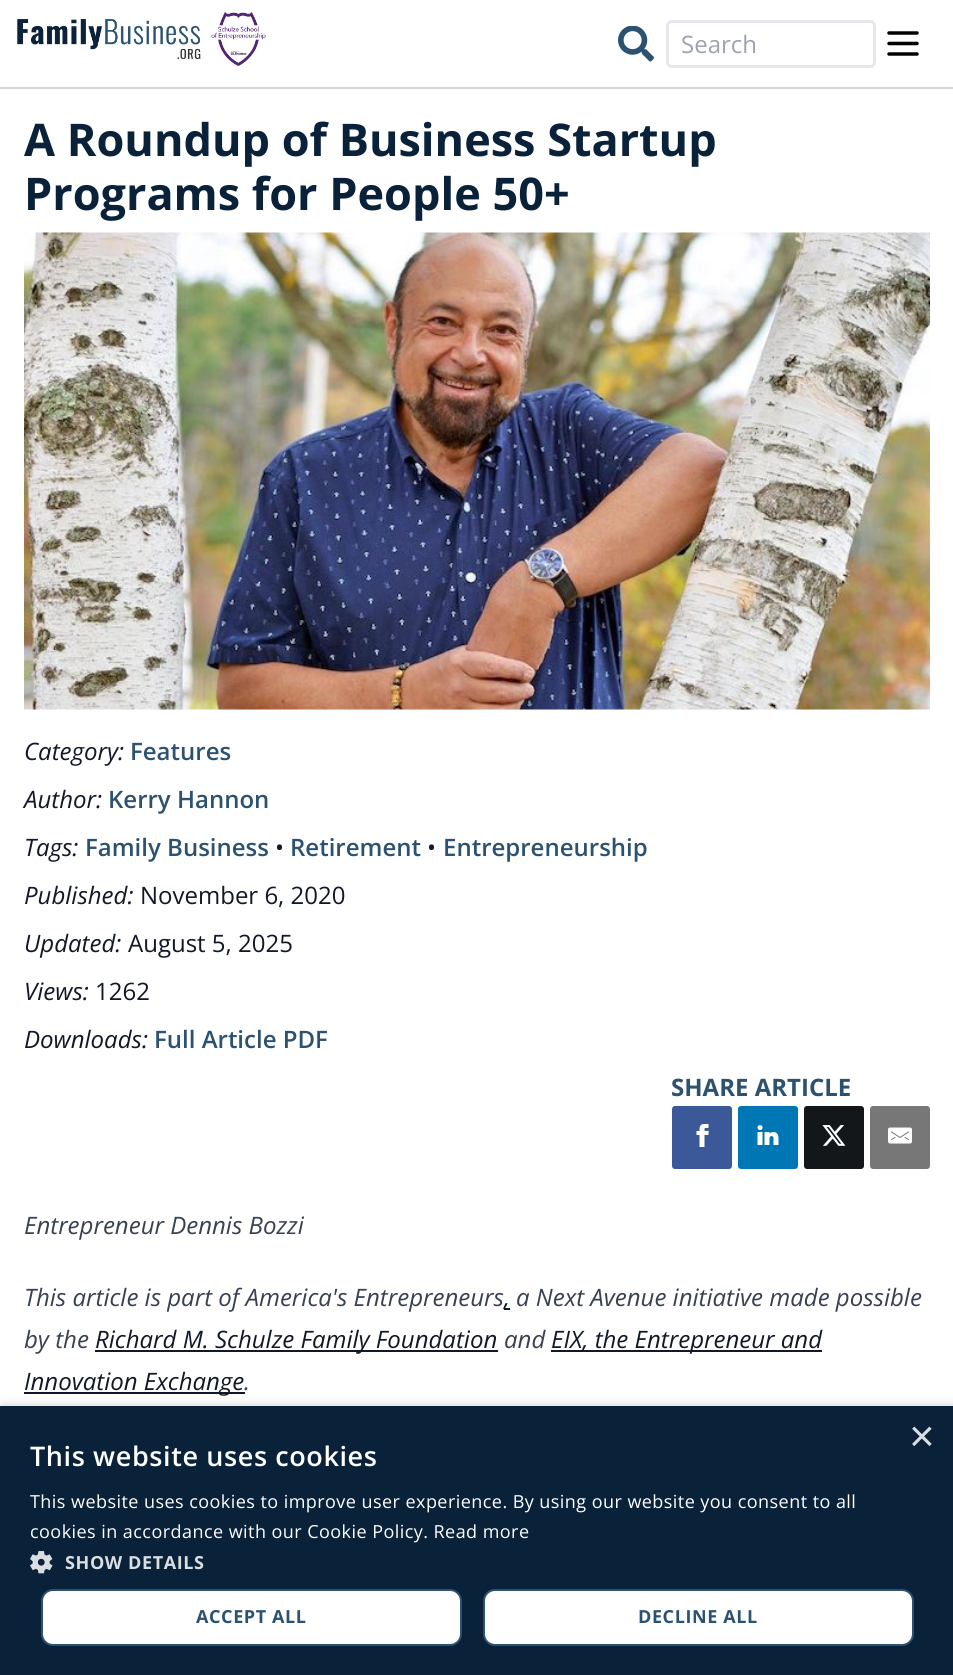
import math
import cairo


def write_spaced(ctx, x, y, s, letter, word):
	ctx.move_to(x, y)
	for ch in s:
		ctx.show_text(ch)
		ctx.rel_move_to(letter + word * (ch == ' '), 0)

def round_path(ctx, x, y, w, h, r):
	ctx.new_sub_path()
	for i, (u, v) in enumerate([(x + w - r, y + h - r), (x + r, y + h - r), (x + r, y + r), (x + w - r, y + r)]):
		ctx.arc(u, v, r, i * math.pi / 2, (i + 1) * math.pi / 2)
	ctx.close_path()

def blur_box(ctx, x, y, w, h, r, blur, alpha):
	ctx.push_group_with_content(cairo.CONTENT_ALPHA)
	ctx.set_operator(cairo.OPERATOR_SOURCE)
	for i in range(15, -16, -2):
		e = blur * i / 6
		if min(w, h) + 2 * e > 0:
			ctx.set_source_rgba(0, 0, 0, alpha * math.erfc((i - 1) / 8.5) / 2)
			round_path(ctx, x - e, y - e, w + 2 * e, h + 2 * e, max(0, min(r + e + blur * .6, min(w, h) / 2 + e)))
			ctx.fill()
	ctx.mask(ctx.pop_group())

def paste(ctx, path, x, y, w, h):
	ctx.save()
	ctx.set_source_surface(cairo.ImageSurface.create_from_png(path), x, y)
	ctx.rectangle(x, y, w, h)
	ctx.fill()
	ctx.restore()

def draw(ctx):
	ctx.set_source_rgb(1, 1, 1)
	ctx.paint()
	ctx.set_source_rgb(0.82, 0.835, 0.859)
	ctx.rectangle(0, 87, 953, 2)
	ctx.fill()
	paste(ctx, 'media/1.png', 17, 19, 184, 41)
	paste(ctx, 'media/2.png', 211, 12, 55, 54)
	paste(ctx, 'media/3.png', 618, 26, 36, 36)
	round_path(ctx, 667.5, 21.5, 207, 45, 4.5)
	ctx.set_source_rgb(0.898, 0.906, 0.922)
	ctx.set_line_width(3)
	ctx.stroke()
	ctx.select_font_face('Open Sans')
	ctx.set_font_size(24)
	ctx.set_source_rgb(0.612, 0.639, 0.686)
	ctx.move_to(681, 53)
	ctx.show_text('Search')
	paste(ctx, 'media/4.png', 887, 31, 32, 25)
	ctx.select_font_face('Open Sans', cairo.FONT_SLANT_NORMAL, cairo.FONT_WEIGHT_BOLD)
	ctx.set_font_size(45)
	ctx.set_source_rgb(0.039, 0.133, 0.227)
	ctx.move_to(24, 156)
	ctx.show_text('A Roundup of Business Startup')
	ctx.move_to(24, 210)
	ctx.show_text('Programs for People 50+')
	paste(ctx, 'media/5.png', 24, 232, 906, 478)
	ctx.select_font_face('Open Sans', cairo.FONT_SLANT_ITALIC)
	ctx.set_font_size(24)
	ctx.set_source_rgb(0.067, 0.094, 0.153)
	ctx.move_to(24, 760)
	ctx.show_text('Category:')
	ctx.select_font_face('Open Sans SemiBold')
	ctx.set_source_rgb(0.173, 0.322, 0.443)
	ctx.move_to(130, 760)
	ctx.show_text('Features')
	ctx.select_font_face('Open Sans', cairo.FONT_SLANT_ITALIC)
	ctx.set_source_rgb(0.067, 0.094, 0.153)
	ctx.move_to(24, 808)
	ctx.show_text('Author:')
	ctx.select_font_face('Open Sans SemiBold')
	ctx.set_source_rgb(0.173, 0.322, 0.443)
	ctx.move_to(108, 808)
	ctx.show_text('Kerry Hannon')
	ctx.select_font_face('Open Sans', cairo.FONT_SLANT_ITALIC)
	ctx.set_source_rgb(0.067, 0.094, 0.153)
	ctx.move_to(24, 856)
	ctx.show_text('Tags:')
	ctx.select_font_face('Open Sans SemiBold')
	ctx.set_source_rgb(0.173, 0.322, 0.443)
	ctx.move_to(85, 856)
	ctx.show_text('Family Business')
	ctx.select_font_face('Open Sans')
	ctx.set_source_rgb(0.067, 0.094, 0.153)
	ctx.move_to(275, 856)
	ctx.show_text('•')
	ctx.select_font_face('Open Sans SemiBold')
	ctx.set_source_rgb(0.173, 0.322, 0.443)
	ctx.move_to(290, 856)
	ctx.show_text('Retirement')
	ctx.select_font_face('Open Sans')
	ctx.set_source_rgb(0.067, 0.094, 0.153)
	ctx.move_to(427, 856)
	ctx.show_text('•')
	ctx.select_font_face('Open Sans SemiBold')
	ctx.set_source_rgb(0.173, 0.322, 0.443)
	ctx.move_to(443, 856)
	ctx.show_text('Entrepreneurship')
	ctx.select_font_face('Open Sans', cairo.FONT_SLANT_ITALIC)
	ctx.set_source_rgb(0.067, 0.094, 0.153)
	ctx.move_to(24, 904)
	ctx.show_text('Published:')
	ctx.select_font_face('Open Sans')
	ctx.move_to(140, 904)
	ctx.show_text('November 6, 2020')
	ctx.select_font_face('Open Sans', cairo.FONT_SLANT_ITALIC)
	ctx.move_to(24, 952)
	ctx.show_text('Updated:')
	ctx.select_font_face('Open Sans')
	ctx.move_to(128, 952)
	ctx.show_text('August 5, 2025')
	ctx.select_font_face('Open Sans', cairo.FONT_SLANT_ITALIC)
	ctx.move_to(24, 1000)
	ctx.show_text('Views:')
	ctx.select_font_face('Open Sans')
	ctx.move_to(95, 1000)
	ctx.show_text('1262')
	ctx.select_font_face('Open Sans', cairo.FONT_SLANT_ITALIC)
	ctx.move_to(24, 1048)
	ctx.show_text('Downloads:')
	ctx.select_font_face('Open Sans SemiBold')
	ctx.set_source_rgb(0.173, 0.322, 0.443)
	ctx.move_to(154, 1048)
	ctx.show_text('Full Article PDF')
	ctx.select_font_face('Open Sans', cairo.FONT_SLANT_NORMAL, cairo.FONT_WEIGHT_BOLD)
	ctx.move_to(671, 1096)
	ctx.show_text('SHARE ARTICLE')
	ctx.set_source_rgb(0.231, 0.349, 0.596)
	round_path(ctx, 672, 1106, 60, 63, 3)
	ctx.fill()
	paste(ctx, 'media/6.png', 696, 1124, 13, 23)
	ctx.set_source_rgb(0, 0.467, 0.71)
	round_path(ctx, 738, 1106, 60, 63, 3)
	ctx.fill()
	paste(ctx, 'media/7.png', 757, 1125, 22, 20)
	ctx.set_source_rgb(0.078, 0.09, 0.102)
	round_path(ctx, 804, 1106, 60, 63, 3)
	ctx.fill()
	paste(ctx, 'media/8.png', 822, 1125, 24, 21)
	ctx.set_source_rgb(0.467, 0.467, 0.467)
	round_path(ctx, 870, 1106, 60, 63, 3)
	ctx.fill()
	paste(ctx, 'media/9.png', 888, 1127, 24, 17)
	ctx.select_font_face('Open Sans', cairo.FONT_SLANT_ITALIC)
	ctx.set_source_rgb(0.216, 0.255, 0.318)
	ctx.move_to(24, 1234)
	ctx.show_text('Entrepreneur Dennis Bozzi')
	ctx.move_to(24, 1306)
	ctx.show_text('This article is part of America\'s Entrepreneurs')
	ctx.set_source_rgb(0.067, 0.094, 0.153)
	ctx.rectangle(504, 1308, 6, 2)
	ctx.fill()
	ctx.move_to(504, 1306)
	ctx.show_text(',')
	ctx.set_source_rgb(0.216, 0.255, 0.318)
	ctx.move_to(516, 1306)
	ctx.show_text('a Next Avenue initiative made possible')
	ctx.move_to(24, 1348)
	ctx.show_text('by the')
	ctx.set_source_rgb(0.067, 0.094, 0.153)
	ctx.rectangle(95, 1350, 403, 2)
	ctx.fill()
	ctx.move_to(95, 1348)
	ctx.show_text('Richard M. Schulze Family Foundation')
	ctx.set_source_rgb(0.216, 0.255, 0.318)
	ctx.move_to(504, 1348)
	ctx.show_text('and')
	ctx.set_source_rgb(0.067, 0.094, 0.153)
	ctx.rectangle(551, 1350, 271, 2)
	ctx.fill()
	ctx.move_to(551, 1348)
	ctx.show_text('EIX, the Entrepreneur and')
	ctx.rectangle(24, 1392, 221, 2)
	ctx.fill()
	ctx.move_to(24, 1390)
	ctx.show_text('Innovation Exchange')
	ctx.set_source_rgb(0.216, 0.255, 0.318)
	ctx.move_to(244, 1390)
	ctx.show_text('.')
	ctx.set_source_rgb(0, 0, 0)
	blur_box(ctx, 2, 1409, 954, 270, 0, 6, 0.35)
	ctx.set_source_rgb(0.039, 0.133, 0.227)
	ctx.rectangle(0, 1406, 953, 269)
	ctx.fill()
	ctx.select_font_face('Liberation Sans')
	ctx.set_font_size(44)
	ctx.set_source_rgb(0.855, 0.871, 0.882)
	ctx.move_to(909, 1451)
	ctx.show_text('×')
	ctx.select_font_face('Open Sans SemiBold')
	ctx.set_font_size(27)
	ctx.set_source_rgb(1, 1, 1)
	write_spaced(ctx, 30, 1466, 'This website uses cookies', 0.6, 0)
	ctx.select_font_face('Open Sans')
	ctx.set_font_size(18)
	write_spaced(ctx, 30, 1508, 'This website uses cookies to improve user experience. By using our website you consent to all', 0.45, 0)
	write_spaced(ctx, 30, 1538, 'cookies in accordance with our Cookie Policy. Read more', 0.45, 0)
	paste(ctx, 'media/10.png', 30, 1551, 23, 23)
	ctx.select_font_face('Open Sans', cairo.FONT_SLANT_NORMAL, cairo.FONT_WEIGHT_BOLD)
	ctx.set_source_rgb(0.855, 0.871, 0.882)
	write_spaced(ctx, 65, 1569, 'SHOW DETAILS', 0.6, 0)
	ctx.set_source_rgb(1, 1, 1)
	round_path(ctx, 42, 1590, 419, 55, 11)
	ctx.fill_preserve()
	ctx.set_source_rgb(0.173, 0.322, 0.443)
	ctx.set_line_width(2)
	ctx.stroke()
	write_spaced(ctx, 196, 1623, 'ACCEPT ALL', 0.6, 0)
	ctx.set_source_rgb(1, 1, 1)
	round_path(ctx, 484, 1590, 429, 55, 11)
	ctx.fill_preserve()
	ctx.set_source_rgb(0.173, 0.322, 0.443)
	ctx.stroke()
	write_spaced(ctx, 638, 1623, 'DECLINE ALL', 0.6, 0)


surface = cairo.ImageSurface(cairo.FORMAT_RGB24, 953, 1675)
ctx = cairo.Context(surface)
options = cairo.FontOptions()
options.set_hint_metrics(cairo.HINT_METRICS_OFF)
options.set_hint_style(cairo.HINT_STYLE_NONE)
ctx.set_font_options(options)
ctx.set_miter_limit(4)
draw(ctx)
surface.write_to_png('image.png')
